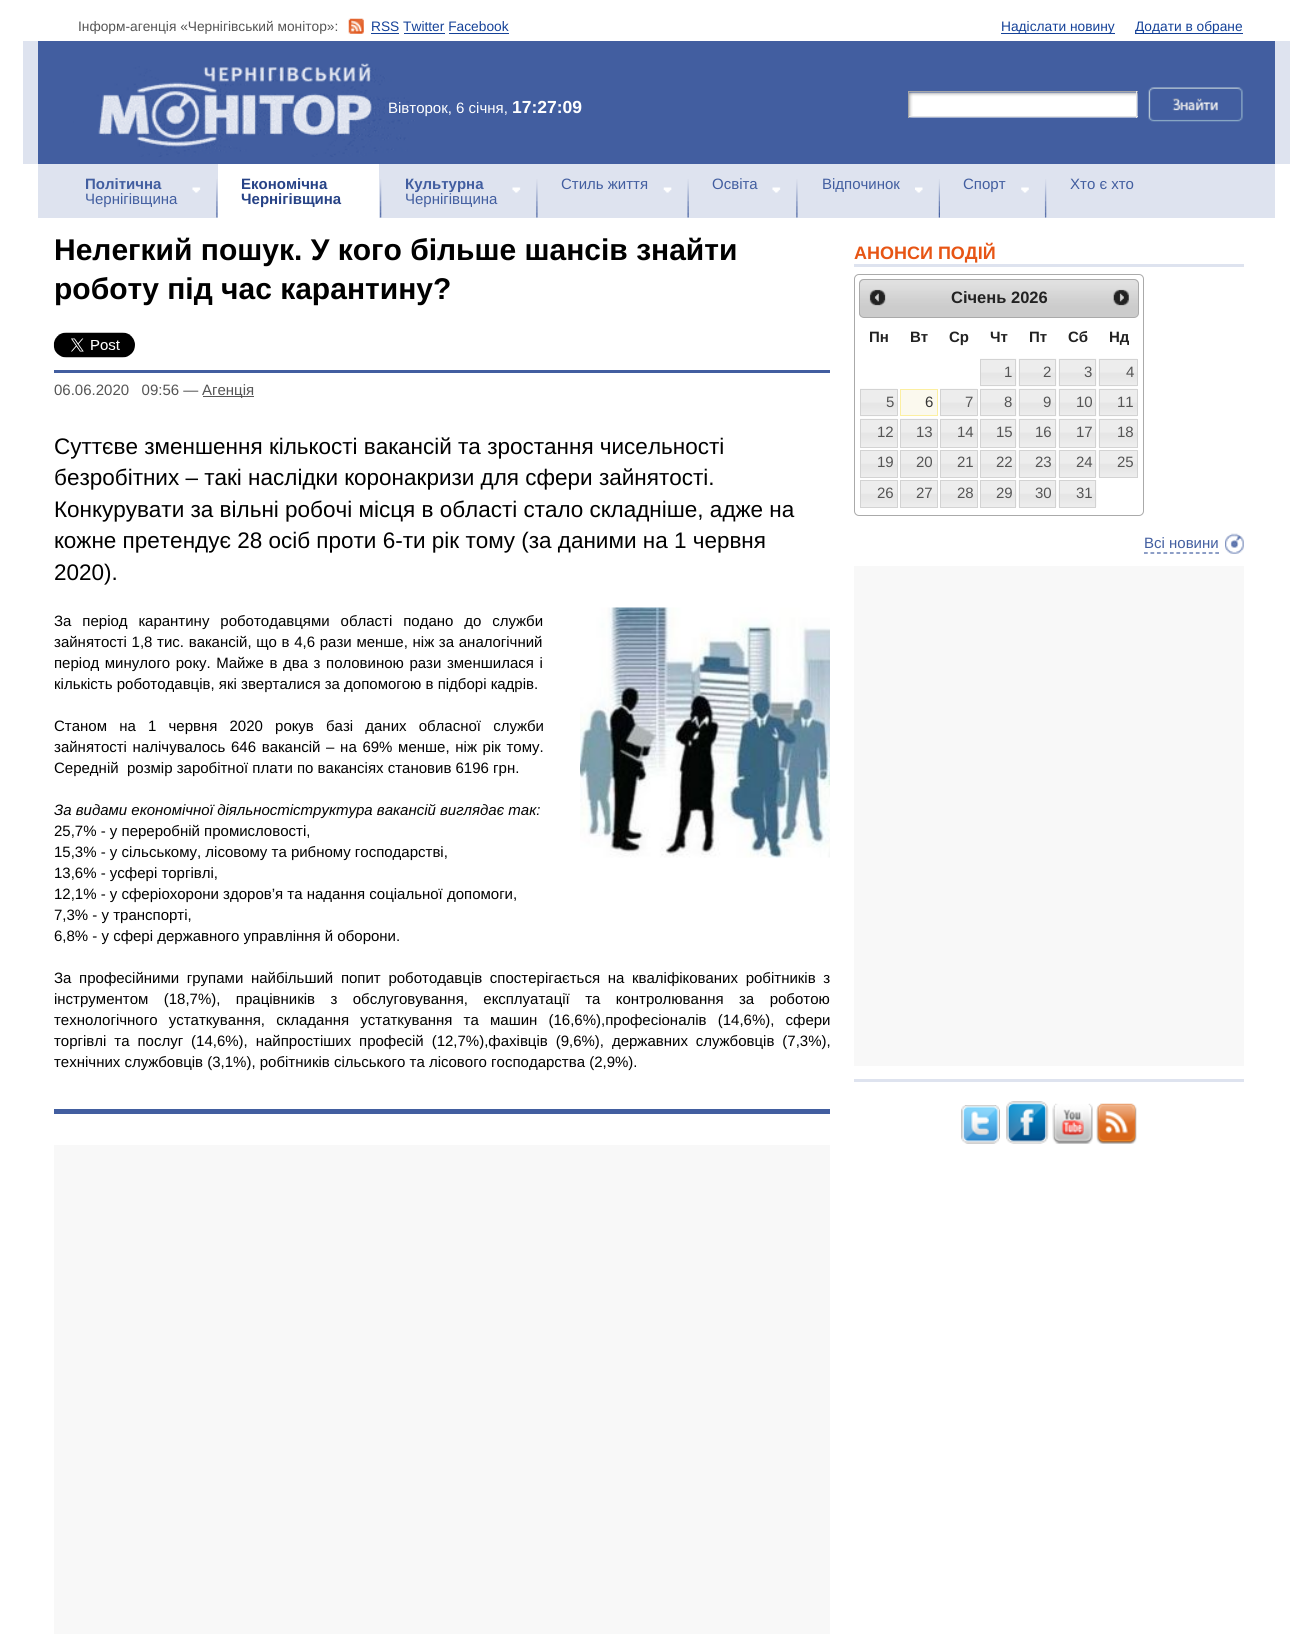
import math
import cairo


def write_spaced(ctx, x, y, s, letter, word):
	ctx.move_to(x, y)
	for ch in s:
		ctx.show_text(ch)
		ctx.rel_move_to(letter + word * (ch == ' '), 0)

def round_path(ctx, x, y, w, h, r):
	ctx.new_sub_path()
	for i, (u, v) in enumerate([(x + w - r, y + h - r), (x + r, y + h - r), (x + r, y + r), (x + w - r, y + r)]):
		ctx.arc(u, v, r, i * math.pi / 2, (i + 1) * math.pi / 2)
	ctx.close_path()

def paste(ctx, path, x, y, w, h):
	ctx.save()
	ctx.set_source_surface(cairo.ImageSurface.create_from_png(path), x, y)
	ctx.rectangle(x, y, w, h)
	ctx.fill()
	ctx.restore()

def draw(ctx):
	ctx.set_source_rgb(1, 1, 1)
	ctx.paint()
	ctx.select_font_face('Liberation Sans')
	ctx.set_font_size(13.75)
	ctx.set_source_rgb(0.333, 0.333, 0.333)
	ctx.move_to(78, 31)
	ctx.show_text('Інформ-агенція «Чернігівський монітор»:')
	paste(ctx, 'media/1.png', 348, 18, 16, 16)
	ctx.set_source_rgb(0.082, 0.255, 0.596)
	ctx.move_to(371, 31)
	ctx.show_text('RSS Twitter Facebook')
	ctx.rectangle(371, 33, 28, 1)
	ctx.rectangle(404, 33, 41, 1)
	ctx.rectangle(449, 33, 60, 1)
	ctx.rectangle(1001, 33, 114, 1)
	ctx.fill()
	ctx.move_to(1001, 31)
	ctx.show_text('Надіслати новину')
	ctx.rectangle(1135, 33, 108, 1)
	ctx.fill()
	ctx.move_to(1135, 31)
	ctx.show_text('Додати в обране')
	ctx.set_source_rgb(0.259, 0.369, 0.627)
	ctx.rectangle(38, 41, 1237, 123)
	ctx.fill()
	ctx.set_source_rgb(0.871, 0.89, 0.937)
	ctx.rectangle(1275, 41, 15, 123)
	ctx.rectangle(23, 41, 15, 123)
	ctx.fill()
	paste(ctx, 'media/2.png', 73, 51, 342, 106)
	ctx.set_font_size(15)
	ctx.set_source_rgb(1, 1, 1)
	ctx.move_to(388, 113)
	ctx.show_text('Вівторок, 6 січня,')
	ctx.select_font_face('Liberation Sans', cairo.FONT_SLANT_NORMAL, cairo.FONT_WEIGHT_BOLD)
	ctx.set_font_size(17.5)
	ctx.move_to(512, 113)
	ctx.show_text('17:27:09')
	paste(ctx, 'media/3.png', 909, 92, 229, 26)
	ctx.set_source_rgb(0.651, 0.651, 0.651)
	ctx.rectangle(908, 91, 230, 1)
	ctx.fill()
	ctx.set_source_rgb(0.894, 0.894, 0.894)
	ctx.rectangle(1136, 91, 1, 27)
	ctx.rectangle(908, 116, 230, 1)
	ctx.fill()
	ctx.set_source_rgb(0.651, 0.651, 0.651)
	ctx.rectangle(908, 91, 1, 27)
	ctx.fill()
	paste(ctx, 'media/4.png', 1148, 87, 95, 35)
	ctx.set_source_rgb(0.871, 0.89, 0.937)
	ctx.rectangle(38, 164, 1237, 54)
	ctx.fill()
	paste(ctx, 'media/5.png', 192, 179, 26, 39)
	ctx.set_font_size(15)
	ctx.set_source_rgb(0.259, 0.369, 0.627)
	ctx.move_to(85, 189)
	ctx.show_text('Політична')
	ctx.select_font_face('Liberation Sans')
	ctx.move_to(85, 204)
	ctx.show_text('Чернігівщина')
	paste(ctx, 'media/6.png', 379, 179, 3, 39)
	ctx.set_source_rgb(1, 1, 1)
	ctx.rectangle(218, 164, 161, 54)
	ctx.fill()
	ctx.select_font_face('Liberation Sans', cairo.FONT_SLANT_NORMAL, cairo.FONT_WEIGHT_BOLD)
	ctx.set_source_rgb(0.149, 0.259, 0.525)
	ctx.move_to(241, 189)
	ctx.show_text('Економічна')
	ctx.move_to(241, 204)
	ctx.show_text('Чернігівщина')
	paste(ctx, 'media/5.png', 512, 179, 26, 39)
	ctx.set_source_rgb(0.259, 0.369, 0.627)
	ctx.move_to(405, 189)
	ctx.show_text('Культурна')
	ctx.select_font_face('Liberation Sans')
	ctx.move_to(405, 204)
	ctx.show_text('Чернігівщина')
	paste(ctx, 'media/7.png', 663, 179, 26, 39)
	ctx.move_to(561, 189)
	ctx.show_text('Стиль життя')
	paste(ctx, 'media/8.png', 772, 179, 26, 39)
	ctx.move_to(712, 189)
	ctx.show_text('Освіта')
	paste(ctx, 'media/9.png', 915, 179, 25, 39)
	ctx.move_to(822, 189)
	ctx.show_text('Відпочинок')
	paste(ctx, 'media/10.png', 1021, 179, 26, 39)
	ctx.move_to(963, 189)
	ctx.show_text('Спорт')
	ctx.move_to(1070, 189)
	ctx.show_text('Хто є хто')
	ctx.rectangle(54, 1109, 776, 5)
	ctx.fill()
	ctx.select_font_face('Liberation Sans', cairo.FONT_SLANT_NORMAL, cairo.FONT_WEIGHT_BOLD)
	ctx.set_font_size(30)
	ctx.set_source_rgb(0, 0, 0)
	ctx.move_to(54, 260)
	ctx.show_text('Нелегкий пошук. У кого більше шансів знайти')
	ctx.move_to(54, 299)
	ctx.show_text('роботу під час карантину?')
	paste(ctx, 'media/11.png', 53, 332, 82, 26)
	ctx.set_source_rgb(0.259, 0.369, 0.627)
	ctx.rectangle(54, 370, 776, 3)
	ctx.fill()
	ctx.select_font_face('Liberation Sans')
	ctx.set_font_size(15)
	ctx.set_source_rgb(0.333, 0.333, 0.333)
	ctx.move_to(54, 395)
	ctx.show_text('06.06.2020   09:56 —')
	ctx.rectangle(203, 396, 51, 1)
	ctx.fill()
	ctx.move_to(202, 395)
	ctx.show_text('Агенцiя')
	ctx.set_font_size(22.5)
	ctx.set_source_rgb(0, 0, 0)
	for x, y, s in [
		(54, 454, 'Суттєве зменшення кількості вакансій та зростання чисельності'),
		(54, 485, 'безробітних – такі наслідки коронакризи для сфери зайнятості.'),
		(54, 517, 'Конкурувати за вільні робочі місця в області стало складніше, адже на'),
		(54, 548, 'кожне претендує 28 осіб проти 6-ти рік тому (за даними на 1 червня'),
		(54, 580, '2020).'),
	]:
		ctx.move_to(x, y)
		ctx.show_text(s)
	paste(ctx, 'media/12.png', 580, 607, 250, 251)
	ctx.set_font_size(15)
	write_spaced(ctx, 54, 626, 'За період карантину роботодавцями області подано до служби', 0, 6.75)
	write_spaced(ctx, 54, 647, 'зайнятості 1,8 тис. вакансій, що в 4,6 рази менше, ніж за аналогічний', 0, 0.5)
	write_spaced(ctx, 54, 668, 'період минулого року. Майже в два з половиною рази зменшилася і', 0, 1.4)
	ctx.move_to(54, 689)
	ctx.show_text('кількість роботодавців, які зверталися за допомогою в підборі кадрів.')
	write_spaced(ctx, 54, 731, 'Станом на 1 червня 2020 рокув базі даних обласної служби', 0, 8)
	write_spaced(ctx, 54, 752, 'зайнятості налічувалось 646 вакансій – на 69% менше, ніж рік тому.', 0, 1.5)
	ctx.move_to(54, 773)
	ctx.show_text('Середній  розмір заробітної плати по вакансіях становив 6196 грн.')
	ctx.select_font_face('Liberation Sans', cairo.FONT_SLANT_ITALIC)
	ctx.move_to(54, 815)
	ctx.show_text('За видами економічної діяльностіструктура вакансій виглядає так:')
	ctx.select_font_face('Liberation Sans')
	for x, y, s in [
		(54, 836, '25,7% - у переробній промисловості,'),
		(54, 857, '15,3% - у сільському, лісовому та рибному господарстві,'),
		(54, 878, '13,6% - усфері торгівлі,'),
		(54, 899, '12,1% - у сферіохорони здоров’я та надання соціальної допомоги,'),
		(54, 920, '7,3% - у транспорті,'),
		(54, 941, '6,8% - у сфері державного управління й оборони.'),
	]:
		ctx.move_to(x, y)
		ctx.show_text(s)
	write_spaced(ctx, 54, 983, 'За професійними групами найбільший попит роботодавців спостерігається на кваліфікованих робітників з', 0, 3.5)
	write_spaced(ctx, 54, 1004, 'інструментом (18,7%), працівників з обслуговування, експлуатації та контролювання за роботою', 0, 11.25)
	write_spaced(ctx, 54, 1025, 'технологічного устаткування, складання устаткування та машин (16,6%),професіоналів (14,6%), сфери', 0, 7)
	write_spaced(ctx, 54, 1046, 'торгівлі та послуг (14,6%), найпростіших професій (12,7%),фахівців (9,6%), державних службовців (7,3%),', 0, 3.75)
	ctx.move_to(54, 1067)
	ctx.show_text('технічних службовців (3,1%), робітників сільського та лісового господарства (2,9%).')
	ctx.set_source_rgb(0.969, 0.969, 0.969)
	ctx.rectangle(54, 1145, 776, 489)
	ctx.fill()
	ctx.set_source_rgb(0.871, 0.89, 0.937)
	ctx.rectangle(854, 264, 390, 3)
	ctx.fill()
	ctx.select_font_face('Liberation Sans', cairo.FONT_SLANT_NORMAL, cairo.FONT_WEIGHT_BOLD)
	ctx.set_font_size(18)
	ctx.set_source_rgb(0.906, 0.333, 0.082)
	ctx.move_to(854, 259)
	ctx.show_text('АНОНСИ ПОДІЙ')
	round_path(ctx, 854.5, 274.5, 289, 241, 4.5)
	ctx.set_source_rgb(0.667, 0.667, 0.667)
	ctx.set_line_width(1)
	ctx.stroke()
	paste(ctx, 'media/13.png', 859, 279, 280, 38)
	round_path(ctx, 859.5, 279.5, 279, 38, 4.5)
	ctx.stroke()
	paste(ctx, 'media/14.png', 869, 289, 17, 17)
	ctx.set_font_size(16.5)
	ctx.set_source_rgb(0.133, 0.133, 0.133)
	ctx.move_to(951, 303)
	ctx.show_text('Січень 2026')
	paste(ctx, 'media/15.png', 1113, 289, 16, 17)
	ctx.set_font_size(15)
	for x, y, s in [
		(869, 342, 'Пн'),
		(910, 342, 'Вт'),
		(949, 342, 'Ср'),
		(990, 342, 'Чт'),
		(1029, 342, 'Пт'),
		(1068, 342, 'Сб'),
		(1109, 342, 'Нд'),
	]:
		ctx.move_to(x, y)
		ctx.show_text(s)
	paste(ctx, 'media/16.png', 980, 358, 37, 29)
	ctx.rectangle(980.5, 359.5, 35, 26)
	ctx.set_source_rgb(0.827, 0.827, 0.827)
	ctx.stroke()
	ctx.select_font_face('Liberation Sans')
	ctx.set_source_rgb(0.333, 0.333, 0.333)
	ctx.move_to(1004, 377)
	ctx.show_text('1')
	paste(ctx, 'media/17.png', 1018, 358, 39, 29)
	ctx.rectangle(1019.5, 359.5, 36, 26)
	ctx.set_source_rgb(0.827, 0.827, 0.827)
	ctx.stroke()
	ctx.set_source_rgb(0.333, 0.333, 0.333)
	ctx.move_to(1043, 377)
	ctx.show_text('2')
	paste(ctx, 'media/17.png', 1058, 358, 39, 29)
	ctx.rectangle(1059.5, 359.5, 36, 26)
	ctx.set_source_rgb(0.827, 0.827, 0.827)
	ctx.stroke()
	ctx.set_source_rgb(0.333, 0.333, 0.333)
	ctx.move_to(1084, 377)
	ctx.show_text('3')
	paste(ctx, 'media/18.png', 1098, 358, 39, 29)
	ctx.rectangle(1099.5, 359.5, 38, 26)
	ctx.set_source_rgb(0.827, 0.827, 0.827)
	ctx.stroke()
	ctx.set_source_rgb(0.333, 0.333, 0.333)
	ctx.move_to(1126, 377)
	ctx.show_text('4')
	paste(ctx, 'media/19.png', 860, 388, 37, 29)
	ctx.rectangle(860.5, 389.5, 37, 26)
	ctx.set_source_rgb(0.827, 0.827, 0.827)
	ctx.stroke()
	ctx.set_source_rgb(0.333, 0.333, 0.333)
	ctx.move_to(886, 407)
	ctx.show_text('5')
	ctx.set_source_rgb(0.984, 0.976, 0.933)
	ctx.rectangle(900.5, 389.5, 37, 26)
	ctx.fill_preserve()
	ctx.set_source_rgb(0.988, 0.937, 0.631)
	ctx.stroke()
	ctx.set_source_rgb(0.212, 0.212, 0.212)
	ctx.move_to(925, 407)
	ctx.show_text('6')
	paste(ctx, 'media/19.png', 940, 388, 37, 29)
	ctx.rectangle(940.5, 389.5, 37, 26)
	ctx.set_source_rgb(0.827, 0.827, 0.827)
	ctx.stroke()
	ctx.set_source_rgb(0.333, 0.333, 0.333)
	ctx.move_to(965, 407)
	ctx.show_text('7')
	paste(ctx, 'media/16.png', 980, 388, 37, 29)
	ctx.rectangle(980.5, 389.5, 35, 26)
	ctx.set_source_rgb(0.827, 0.827, 0.827)
	ctx.stroke()
	ctx.set_source_rgb(0.333, 0.333, 0.333)
	ctx.move_to(1004, 407)
	ctx.show_text('8')
	paste(ctx, 'media/17.png', 1018, 388, 39, 29)
	ctx.rectangle(1019.5, 389.5, 36, 26)
	ctx.set_source_rgb(0.827, 0.827, 0.827)
	ctx.stroke()
	ctx.set_source_rgb(0.333, 0.333, 0.333)
	ctx.move_to(1043, 407)
	ctx.show_text('9')
	paste(ctx, 'media/17.png', 1058, 388, 39, 29)
	ctx.rectangle(1059.5, 389.5, 36, 26)
	ctx.set_source_rgb(0.827, 0.827, 0.827)
	ctx.stroke()
	ctx.set_source_rgb(0.333, 0.333, 0.333)
	ctx.move_to(1076, 407)
	ctx.show_text('10')
	paste(ctx, 'media/18.png', 1098, 388, 39, 29)
	ctx.rectangle(1099.5, 389.5, 38, 26)
	ctx.set_source_rgb(0.827, 0.827, 0.827)
	ctx.stroke()
	ctx.set_source_rgb(0.333, 0.333, 0.333)
	ctx.move_to(1117, 407)
	ctx.show_text('11')
	paste(ctx, 'media/20.png', 860, 418, 37, 29)
	ctx.rectangle(860.5, 419.5, 37, 28)
	ctx.set_source_rgb(0.827, 0.827, 0.827)
	ctx.stroke()
	ctx.set_source_rgb(0.333, 0.333, 0.333)
	ctx.move_to(877, 437)
	ctx.show_text('12')
	paste(ctx, 'media/20.png', 900, 418, 37, 29)
	ctx.rectangle(900.5, 419.5, 37, 28)
	ctx.set_source_rgb(0.827, 0.827, 0.827)
	ctx.stroke()
	ctx.set_source_rgb(0.333, 0.333, 0.333)
	ctx.move_to(916, 437)
	ctx.show_text('13')
	paste(ctx, 'media/20.png', 940, 418, 37, 29)
	ctx.rectangle(940.5, 419.5, 37, 28)
	ctx.set_source_rgb(0.827, 0.827, 0.827)
	ctx.stroke()
	ctx.set_source_rgb(0.333, 0.333, 0.333)
	ctx.move_to(957, 437)
	ctx.show_text('14')
	paste(ctx, 'media/21.png', 980, 418, 37, 29)
	ctx.rectangle(980.5, 419.5, 35, 28)
	ctx.set_source_rgb(0.827, 0.827, 0.827)
	ctx.stroke()
	ctx.set_source_rgb(0.333, 0.333, 0.333)
	ctx.move_to(996, 437)
	ctx.show_text('15')
	paste(ctx, 'media/22.png', 1018, 418, 39, 29)
	ctx.rectangle(1019.5, 419.5, 36, 28)
	ctx.set_source_rgb(0.827, 0.827, 0.827)
	ctx.stroke()
	ctx.set_source_rgb(0.333, 0.333, 0.333)
	ctx.move_to(1035, 437)
	ctx.show_text('16')
	paste(ctx, 'media/22.png', 1058, 418, 39, 29)
	ctx.rectangle(1059.5, 419.5, 36, 28)
	ctx.set_source_rgb(0.827, 0.827, 0.827)
	ctx.stroke()
	ctx.set_source_rgb(0.333, 0.333, 0.333)
	ctx.move_to(1076, 437)
	ctx.show_text('17')
	paste(ctx, 'media/23.png', 1098, 418, 39, 29)
	ctx.rectangle(1099.5, 419.5, 38, 28)
	ctx.set_source_rgb(0.827, 0.827, 0.827)
	ctx.stroke()
	ctx.set_source_rgb(0.333, 0.333, 0.333)
	ctx.move_to(1117, 437)
	ctx.show_text('18')
	paste(ctx, 'media/24.png', 861, 451, 36, 26)
	ctx.rectangle(860.5, 450.5, 37, 27)
	ctx.set_source_rgb(0.827, 0.827, 0.827)
	ctx.stroke()
	ctx.set_source_rgb(0.333, 0.333, 0.333)
	ctx.move_to(877, 467)
	ctx.show_text('19')
	paste(ctx, 'media/24.png', 901, 451, 36, 26)
	ctx.rectangle(900.5, 450.5, 37, 27)
	ctx.set_source_rgb(0.827, 0.827, 0.827)
	ctx.stroke()
	ctx.set_source_rgb(0.333, 0.333, 0.333)
	ctx.move_to(916, 467)
	ctx.show_text('20')
	paste(ctx, 'media/24.png', 941, 451, 36, 26)
	ctx.rectangle(940.5, 450.5, 37, 27)
	ctx.set_source_rgb(0.827, 0.827, 0.827)
	ctx.stroke()
	ctx.set_source_rgb(0.333, 0.333, 0.333)
	ctx.move_to(957, 467)
	ctx.show_text('21')
	paste(ctx, 'media/25.png', 981, 450, 36, 27)
	ctx.rectangle(980.5, 450.5, 35, 27)
	ctx.set_source_rgb(0.827, 0.827, 0.827)
	ctx.stroke()
	ctx.set_source_rgb(0.333, 0.333, 0.333)
	ctx.move_to(996, 467)
	ctx.show_text('22')
	paste(ctx, 'media/26.png', 1018, 450, 39, 27)
	ctx.rectangle(1019.5, 450.5, 36, 27)
	ctx.set_source_rgb(0.827, 0.827, 0.827)
	ctx.stroke()
	ctx.set_source_rgb(0.333, 0.333, 0.333)
	ctx.move_to(1035, 467)
	ctx.show_text('23')
	paste(ctx, 'media/26.png', 1058, 450, 39, 27)
	ctx.rectangle(1059.5, 450.5, 36, 27)
	ctx.set_source_rgb(0.827, 0.827, 0.827)
	ctx.stroke()
	ctx.set_source_rgb(0.333, 0.333, 0.333)
	ctx.move_to(1076, 467)
	ctx.show_text('24')
	paste(ctx, 'media/27.png', 1098, 450, 39, 27)
	ctx.rectangle(1099.5, 450.5, 38, 27)
	ctx.set_source_rgb(0.827, 0.827, 0.827)
	ctx.stroke()
	ctx.set_source_rgb(0.333, 0.333, 0.333)
	ctx.move_to(1117, 467)
	ctx.show_text('25')
	paste(ctx, 'media/24.png', 861, 481, 36, 26)
	ctx.rectangle(860.5, 480.5, 37, 27)
	ctx.set_source_rgb(0.827, 0.827, 0.827)
	ctx.stroke()
	ctx.set_source_rgb(0.333, 0.333, 0.333)
	ctx.move_to(877, 498)
	ctx.show_text('26')
	paste(ctx, 'media/24.png', 901, 481, 36, 26)
	ctx.rectangle(900.5, 480.5, 37, 27)
	ctx.set_source_rgb(0.827, 0.827, 0.827)
	ctx.stroke()
	ctx.set_source_rgb(0.333, 0.333, 0.333)
	ctx.move_to(916, 498)
	ctx.show_text('27')
	paste(ctx, 'media/24.png', 941, 481, 36, 26)
	ctx.rectangle(940.5, 480.5, 37, 27)
	ctx.set_source_rgb(0.827, 0.827, 0.827)
	ctx.stroke()
	ctx.set_source_rgb(0.333, 0.333, 0.333)
	ctx.move_to(957, 498)
	ctx.show_text('28')
	paste(ctx, 'media/25.png', 981, 480, 36, 27)
	ctx.rectangle(980.5, 480.5, 35, 27)
	ctx.set_source_rgb(0.827, 0.827, 0.827)
	ctx.stroke()
	ctx.set_source_rgb(0.333, 0.333, 0.333)
	ctx.move_to(996, 498)
	ctx.show_text('29')
	paste(ctx, 'media/26.png', 1018, 480, 39, 27)
	ctx.rectangle(1019.5, 480.5, 36, 27)
	ctx.set_source_rgb(0.827, 0.827, 0.827)
	ctx.stroke()
	ctx.set_source_rgb(0.333, 0.333, 0.333)
	ctx.move_to(1035, 498)
	ctx.show_text('30')
	paste(ctx, 'media/26.png', 1058, 480, 39, 27)
	ctx.rectangle(1059.5, 480.5, 36, 27)
	ctx.set_source_rgb(0.827, 0.827, 0.827)
	ctx.stroke()
	ctx.set_source_rgb(0.333, 0.333, 0.333)
	ctx.move_to(1076, 498)
	ctx.show_text('31')
	paste(ctx, 'media/28.png', 1225, 533, 19, 21)
	ctx.set_source_rgb(0.259, 0.369, 0.627)
	ctx.move_to(1144, 548)
	ctx.show_text('Всі новини')
	ctx.new_path()
	ctx.move_to(1144, 553)
	ctx.line_to(1219, 553)
	ctx.set_line_width(1.2)
	ctx.set_dash([3.75, 2.73])
	ctx.stroke()
	ctx.set_source_rgb(0.969, 0.969, 0.969)
	ctx.rectangle(854, 566, 390, 500)
	ctx.fill()
	ctx.set_source_rgb(0.871, 0.89, 0.937)
	ctx.rectangle(854, 1079, 390, 3)
	ctx.fill()
	paste(ctx, 'media/29.png', 961, 1105, 39, 39)
	paste(ctx, 'media/30.png', 1006, 1101, 43, 43)
	paste(ctx, 'media/31.png', 1052, 1103, 41, 41)
	paste(ctx, 'media/32.png', 1096, 1103, 41, 41)


surface = cairo.ImageSurface(cairo.FORMAT_RGB24, 1312, 1634)
ctx = cairo.Context(surface)
options = cairo.FontOptions()
options.set_hint_metrics(cairo.HINT_METRICS_OFF)
options.set_hint_style(cairo.HINT_STYLE_NONE)
ctx.set_font_options(options)
ctx.set_miter_limit(4)
draw(ctx)
surface.write_to_png('image.png')
